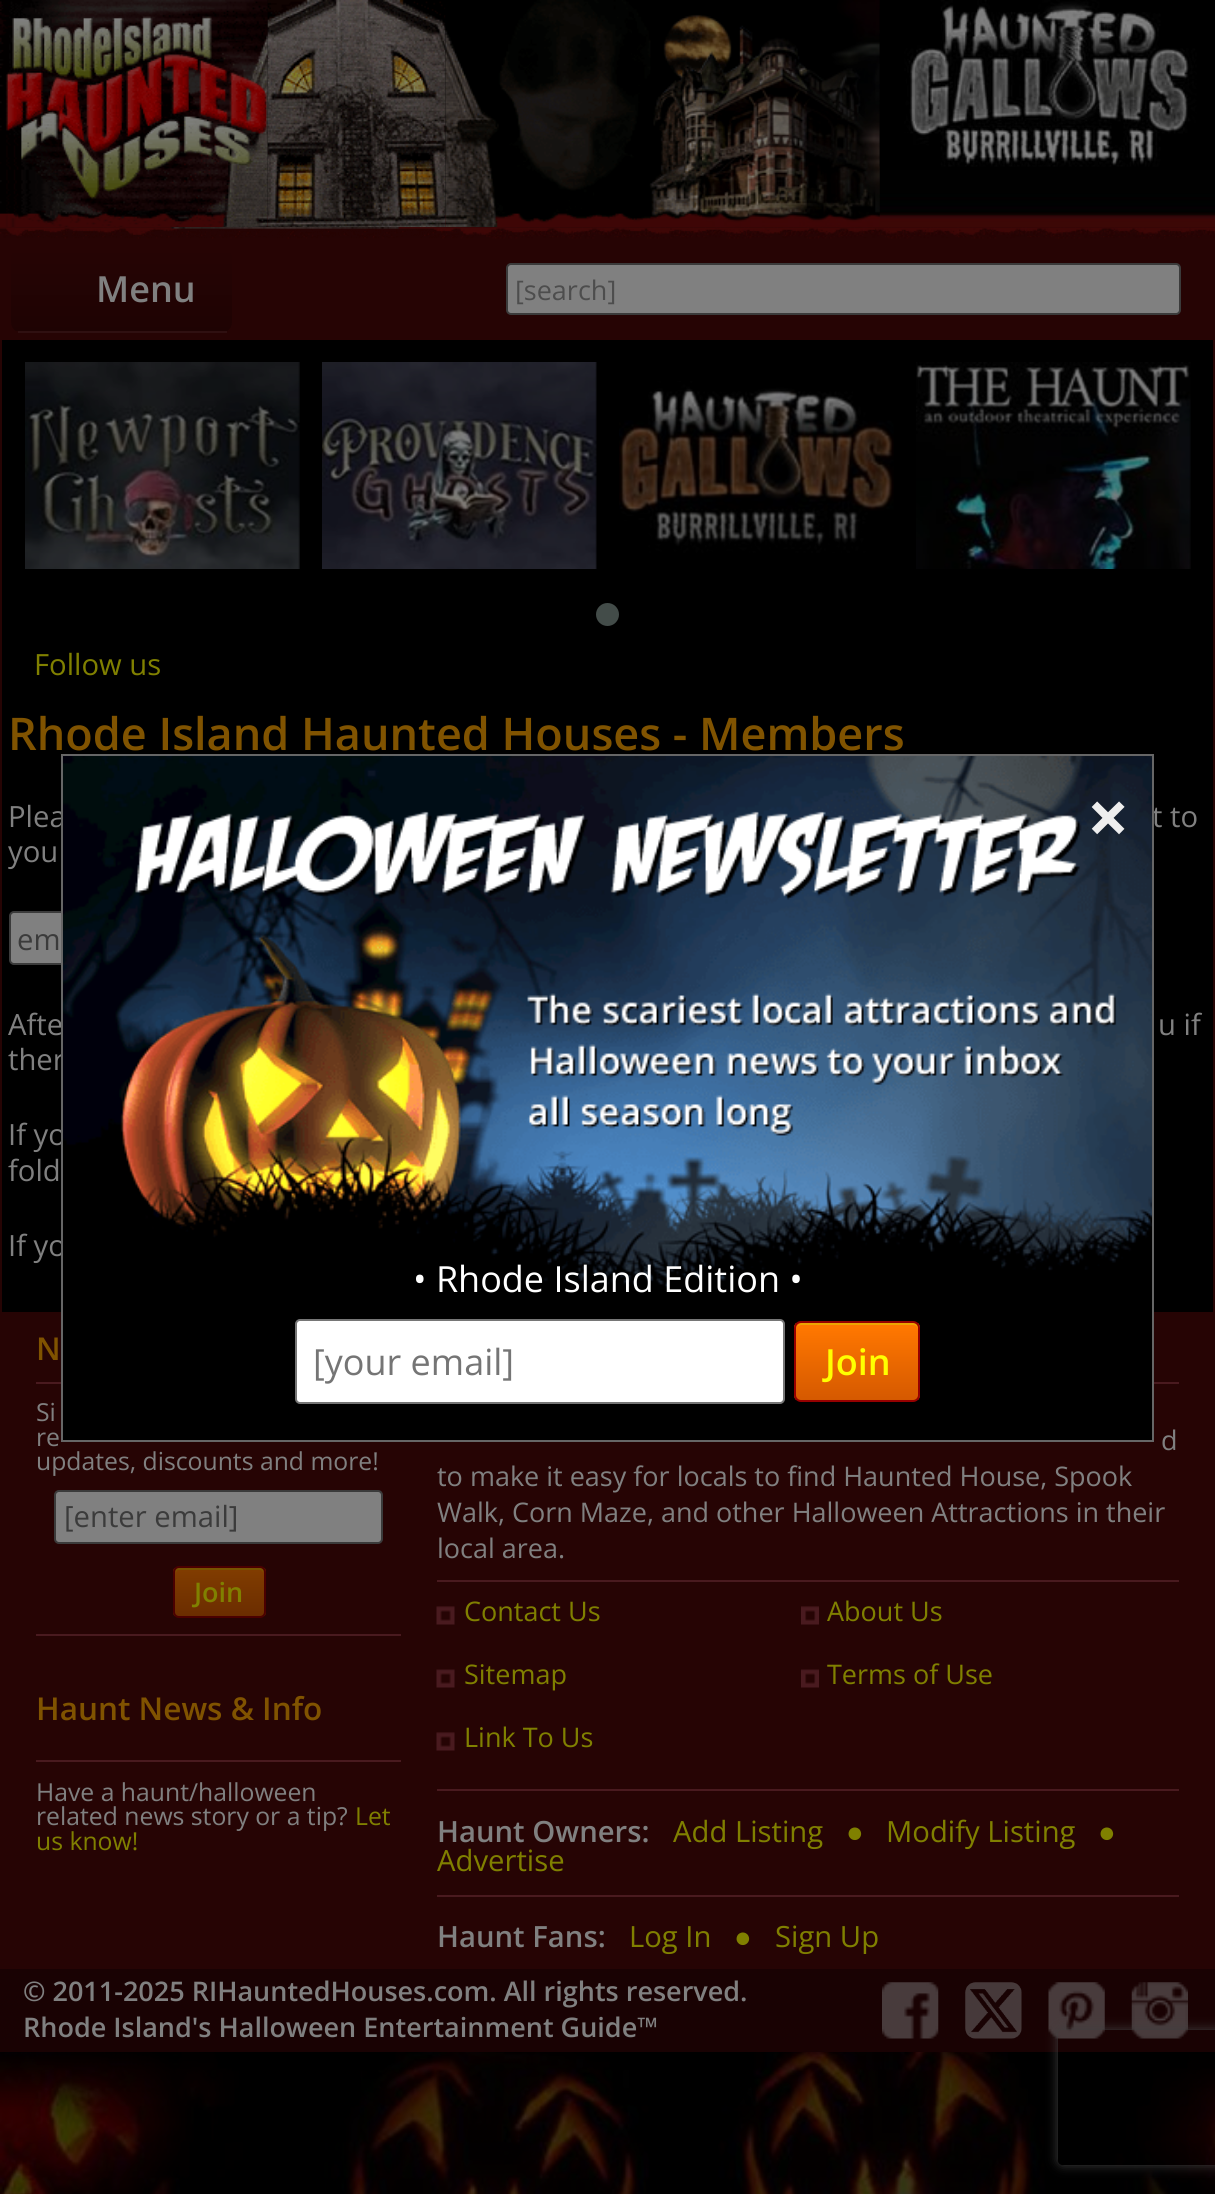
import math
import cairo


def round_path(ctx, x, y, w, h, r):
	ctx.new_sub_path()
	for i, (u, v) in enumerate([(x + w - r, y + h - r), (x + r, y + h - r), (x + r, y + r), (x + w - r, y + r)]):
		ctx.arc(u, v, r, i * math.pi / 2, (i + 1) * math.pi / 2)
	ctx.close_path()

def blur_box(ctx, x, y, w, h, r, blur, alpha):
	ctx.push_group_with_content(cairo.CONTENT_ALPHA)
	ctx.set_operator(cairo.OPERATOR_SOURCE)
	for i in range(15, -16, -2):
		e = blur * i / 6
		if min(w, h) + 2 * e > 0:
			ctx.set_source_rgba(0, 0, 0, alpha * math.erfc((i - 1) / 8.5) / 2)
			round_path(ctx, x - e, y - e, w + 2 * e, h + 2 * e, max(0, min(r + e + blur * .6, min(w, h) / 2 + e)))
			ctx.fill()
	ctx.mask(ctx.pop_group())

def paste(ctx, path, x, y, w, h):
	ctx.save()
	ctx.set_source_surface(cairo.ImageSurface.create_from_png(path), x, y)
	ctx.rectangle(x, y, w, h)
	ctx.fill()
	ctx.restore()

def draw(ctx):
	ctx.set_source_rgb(1, 1, 1)
	ctx.paint()
	paste(ctx, 'media/1.png', 0, 2052, 1215, 142)
	paste(ctx, 'media/2.png', 267, 0, 948, 227)
	paste(ctx, 'media/3.png', 0, 0, 268, 227)
	paste(ctx, 'media/4.png', 267, 0, 179, 227)
	paste(ctx, 'media/5.png', 445, 0, 257, 227)
	paste(ctx, 'media/6.png', 702, 0, 178, 227)
	paste(ctx, 'media/7.png', 879, 0, 336, 167)
	ctx.set_source_rgb(0.149, 0.016, 0.016)
	ctx.rectangle(0, 227, 1215, 113)
	ctx.fill()
	paste(ctx, 'media/8.png', 0, 227, 1215, 12)
	ctx.save()
	round_path(ctx, 11, 248, 221, 85, 11)
	ctx.clip()
	gradient = cairo.LinearGradient(122, 248, 122, 331)
	gradient.add_color_stop_rgba(0, 0.149, 0.016, 0.016, 1)
	gradient.add_color_stop_rgba(1, 0.118, 0.012, 0.012, 1)
	ctx.set_source(gradient)
	ctx.new_path()
	ctx.move_to(22, 248)
	ctx.line_to(221, 248)
	ctx.curve_to(227, 248, 232, 253, 232, 259)
	ctx.line_to(232, 331)
	ctx.line_to(11, 331)
	ctx.line_to(11, 259)
	ctx.curve_to(11, 253, 16, 248, 22, 248)
	ctx.close_path()
	ctx.fill()
	ctx.restore()
	ctx.set_source_rgb(0.184, 0.063, 0.067)
	ctx.rectangle(18, 331, 209, 2)
	ctx.fill()
	ctx.select_font_face('Open Sans SemiBold')
	ctx.set_font_size(36)
	ctx.set_source_rgb(0.502, 0.502, 0.502)
	ctx.move_to(96, 302)
	ctx.show_text('Menu')
	round_path(ctx, 507, 264, 673, 50, 4)
	ctx.fill_preserve()
	ctx.set_source_rgb(0.231, 0.231, 0.231)
	ctx.stroke()
	ctx.select_font_face('Open Sans')
	ctx.set_font_size(27)
	ctx.set_source_rgb(0.302, 0.302, 0.302)
	ctx.move_to(515, 300)
	ctx.show_text('[search]')
	ctx.set_source_rgb(0, 0, 0)
	ctx.rectangle(2, 340, 1211, 972)
	ctx.fill()
	ctx.set_source_rgb(0.149, 0.016, 0.016)
	ctx.rectangle(1213, 340, 2, 974)
	ctx.rectangle(0, 1312, 1215, 657)
	ctx.rectangle(0, 340, 2, 974)
	ctx.fill()
	paste(ctx, 'media/9.png', 25, 362, 275, 207)
	paste(ctx, 'media/10.png', 322, 362, 275, 207)
	paste(ctx, 'media/11.png', 619, 381, 275, 172)
	paste(ctx, 'media/12.png', 916, 362, 275, 207)
	ctx.set_source_rgb(0.263, 0.298, 0.286)
	ctx.arc(607.5, 614.5, 11.5, 0, 2 * math.pi)
	ctx.fill()
	ctx.set_font_size(29.25)
	ctx.set_source_rgb(0.502, 0.502, 0)
	ctx.move_to(34, 675)
	ctx.show_text('Follow us')
	ctx.select_font_face('Open Sans SemiBold')
	ctx.set_font_size(45)
	ctx.set_source_rgb(0.502, 0.325, 0)
	ctx.move_to(8, 750)
	ctx.show_text('Rhode Island Haunted Houses - Members')
	ctx.select_font_face('Open Sans')
	ctx.set_font_size(29.25)
	ctx.set_source_rgb(0.502, 0.502, 0.502)
	for x, y, s in [
		(8, 827, 'Plea'),
		(1152, 827, 't to'),
		(8, 862, 'you'),
	]:
		ctx.move_to(x, y)
		ctx.show_text(s)
	round_path(ctx, 10, 912, 554, 52, 4)
	ctx.fill_preserve()
	ctx.set_source_rgb(0.231, 0.231, 0.231)
	ctx.stroke()
	ctx.move_to(17, 950)
	ctx.show_text('em')
	ctx.set_source_rgb(0.502, 0.502, 0.502)
	for x, y, s in [
		(8, 1035, 'Afte'),
		(1158, 1035, 'u if'),
		(8, 1070, 'ther'),
		(8, 1145, 'If yo'),
		(8, 1181, 'fold'),
		(8, 1256, 'If yo'),
	]:
		ctx.move_to(x, y)
		ctx.show_text(s)
	ctx.set_source_rgb(0.098, 0.008, 0.012)
	ctx.rectangle(0, 1969, 1215, 83)
	ctx.fill()
	paste(ctx, 'media/19.png', 1048, 1982, 57, 57)
	paste(ctx, 'media/20.png', 1131, 1982, 57, 57)
	ctx.save()
	ctx.set_fill_rule(cairo.FILL_RULE_EVEN_ODD)
	ctx.new_path()
	ctx.move_to(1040, 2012)
	ctx.line_to(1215, 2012)
	ctx.line_to(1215, 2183)
	ctx.line_to(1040, 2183)
	ctx.close_path()
	ctx.move_to(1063, 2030)
	ctx.line_to(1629, 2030)
	ctx.curve_to(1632, 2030, 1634, 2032, 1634, 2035)
	ctx.line_to(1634, 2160)
	ctx.curve_to(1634, 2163, 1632, 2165, 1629, 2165)
	ctx.line_to(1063, 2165)
	ctx.curve_to(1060, 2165, 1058, 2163, 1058, 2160)
	ctx.line_to(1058, 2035)
	ctx.curve_to(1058, 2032, 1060, 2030, 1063, 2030)
	ctx.close_path()
	ctx.clip()
	ctx.set_source_rgb(0.251, 0.251, 0.251)
	blur_box(ctx, 1058, 2030, 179, 135, 5, 5.5, 1)
	ctx.restore()
	ctx.select_font_face('Open Sans SemiBold')
	ctx.set_font_size(31.5)
	ctx.set_source_rgb(0.502, 0.325, 0)
	ctx.move_to(36, 1360)
	ctx.show_text('N')
	ctx.set_source_rgb(0.286, 0.102, 0.122)
	ctx.rectangle(36, 1382, 25, 2)
	ctx.fill()
	ctx.select_font_face('Open Sans')
	ctx.set_font_size(24.75)
	ctx.set_source_rgb(0.502, 0.502, 0.502)
	for x, y, s in [
		(36, 1421, 'Si'),
		(36, 1446, 're'),
		(36, 1470, 'updates, discounts and more!'),
	]:
		ctx.move_to(x, y)
		ctx.show_text(s)
	round_path(ctx, 55, 1491, 327, 52, 4)
	ctx.fill_preserve()
	ctx.set_source_rgb(0.231, 0.231, 0.231)
	ctx.stroke()
	ctx.set_font_size(29.25)
	ctx.move_to(64, 1527)
	ctx.show_text('[enter email]')
	ctx.save()
	round_path(ctx, 173, 1566, 93, 52, 6)
	ctx.clip()
	gradient = cairo.LinearGradient(219, 1568, 219, 1616)
	gradient.add_color_stop_rgba(0.05, 0.502, 0.235, 0, 1)
	gradient.add_color_stop_rgba(1, 0.42, 0.176, 0, 1)
	ctx.set_source(gradient)
	ctx.rectangle(173, 1568, 93, 48)
	ctx.fill()
	ctx.restore()
	ctx.set_source_rgb(0.463, 0.325, 0)
	ctx.new_path()
	ctx.move_to(178, 1570)
	ctx.line_to(260, 1570)
	ctx.curve_to(262, 1570, 263, 1572, 263, 1573)
	ctx.line_to(263, 1571)
	ctx.curve_to(263, 1569, 262, 1568, 260, 1568)
	ctx.line_to(179, 1568)
	ctx.curve_to(177, 1568, 176, 1569, 176, 1571)
	ctx.line_to(176, 1573)
	ctx.curve_to(176, 1572, 177, 1570, 178, 1570)
	ctx.close_path()
	ctx.fill()
	round_path(ctx, 174, 1567, 91, 50, 5)
	ctx.set_source_rgb(0.294, 0, 0)
	ctx.stroke()
	ctx.select_font_face('Open Sans SemiBold')
	ctx.set_font_size(27)
	ctx.set_source_rgb(0.502, 0.502, 0)
	ctx.move_to(194, 1602)
	ctx.show_text('Join')
	ctx.set_source_rgb(0.286, 0.102, 0.122)
	ctx.rectangle(36, 1634, 365, 2)
	ctx.fill()
	ctx.set_font_size(31.5)
	ctx.set_source_rgb(0.502, 0.325, 0)
	ctx.move_to(36, 1720)
	ctx.show_text('Haunt News & Info')
	ctx.set_source_rgb(0.286, 0.102, 0.122)
	ctx.rectangle(36, 1760, 365, 2)
	ctx.fill()
	ctx.select_font_face('Open Sans')
	ctx.set_font_size(24.75)
	ctx.set_source_rgb(0.502, 0.502, 0.502)
	ctx.move_to(36, 1801)
	ctx.show_text('Have a haunt/halloween')
	ctx.move_to(36, 1825)
	ctx.show_text('related news story or a tip?')
	ctx.set_source_rgb(0.502, 0.502, 0)
	ctx.move_to(355, 1825)
	ctx.show_text('Let')
	ctx.move_to(36, 1850)
	ctx.show_text('us know!')
	ctx.set_source_rgb(0.286, 0.102, 0.122)
	ctx.rectangle(1154, 1382, 25, 2)
	ctx.fill()
	ctx.set_font_size(27)
	ctx.set_source_rgb(0.502, 0.502, 0.502)
	for x, y, s in [
		(1161, 1450, 'd'),
		(437, 1486, 'to make it easy for locals to find Haunted House, Spook'),
		(437, 1522, 'Walk, Corn Maze, and other Halloween Attractions in their'),
		(437, 1558, 'local area.'),
	]:
		ctx.move_to(x, y)
		ctx.show_text(s)
	ctx.set_source_rgb(0.286, 0.102, 0.122)
	ctx.rectangle(437, 1580, 742, 2)
	ctx.fill()
	paste(ctx, 'media/13.png', 436, 1606, 19, 19)
	ctx.set_source_rgb(0.502, 0.502, 0)
	ctx.move_to(464, 1621)
	ctx.show_text('Contact Us')
	paste(ctx, 'media/14.png', 801, 1606, 18, 19)
	ctx.move_to(827, 1621)
	ctx.show_text('About Us')
	paste(ctx, 'media/15.png', 436, 1669, 19, 19)
	ctx.move_to(464, 1684)
	ctx.show_text('Sitemap')
	paste(ctx, 'media/16.png', 801, 1669, 18, 19)
	ctx.move_to(827, 1684)
	ctx.show_text('Terms of Use')
	paste(ctx, 'media/13.png', 436, 1732, 19, 19)
	ctx.move_to(464, 1747)
	ctx.show_text('Link To Us')
	ctx.set_source_rgb(0.286, 0.102, 0.122)
	ctx.rectangle(437, 1789, 742, 2)
	ctx.fill()
	ctx.select_font_face('Open Sans SemiBold')
	ctx.set_font_size(29.25)
	ctx.set_source_rgb(0.502, 0.502, 0.502)
	ctx.move_to(437, 1842)
	ctx.show_text('Haunt Owners:')
	ctx.select_font_face('Open Sans')
	ctx.set_source_rgb(0.502, 0.502, 0)
	ctx.move_to(673, 1842)
	ctx.show_text('Add Listing')
	ctx.select_font_face('Liberation Sans')
	ctx.move_to(846, 1842)
	ctx.show_text('●')
	ctx.select_font_face('Open Sans')
	ctx.move_to(886, 1842)
	ctx.show_text('Modify Listing')
	ctx.select_font_face('Liberation Sans')
	ctx.move_to(1098, 1842)
	ctx.show_text('●')
	ctx.select_font_face('Open Sans')
	ctx.move_to(437, 1871)
	ctx.show_text('Advertise')
	ctx.set_source_rgb(0.286, 0.102, 0.122)
	ctx.rectangle(437, 1895, 742, 2)
	ctx.fill()
	ctx.select_font_face('Open Sans SemiBold')
	ctx.set_source_rgb(0.502, 0.502, 0.502)
	ctx.move_to(437, 1947)
	ctx.show_text('Haunt Fans:')
	ctx.select_font_face('Open Sans')
	ctx.set_source_rgb(0.502, 0.502, 0)
	ctx.move_to(629, 1947)
	ctx.show_text('Log In')
	ctx.select_font_face('Liberation Sans')
	ctx.move_to(734, 1947)
	ctx.show_text('●')
	ctx.select_font_face('Open Sans')
	ctx.move_to(775, 1947)
	ctx.show_text('Sign Up')
	ctx.select_font_face('Open Sans SemiBold')
	ctx.set_font_size(27)
	ctx.set_source_rgb(0.502, 0.502, 0.502)
	ctx.move_to(23, 2001)
	ctx.show_text('© 2011-2025 RIHauntedHouses.com. All rights reserved.')
	ctx.move_to(23, 2037)
	ctx.show_text('Rhode Island\'s Halloween Entertainment Guide™')
	paste(ctx, 'media/17.png', 882, 1982, 57, 57)
	paste(ctx, 'media/18.png', 965, 1982, 57, 57)
	ctx.set_source_rgb(0, 0, 0)
	ctx.rectangle(63, 1312, 1089, 128)
	ctx.fill()
	ctx.rectangle(62, 755, 1091, 686)
	ctx.set_source_rgb(0.4, 0.4, 0.4)
	ctx.stroke()
	paste(ctx, 'media/21.png', 63, 756, 1089, 532)
	ctx.select_font_face('Open Sans', cairo.FONT_SLANT_NORMAL, cairo.FONT_WEIGHT_BOLD)
	ctx.set_font_size(74)
	ctx.set_source_rgb(0.933, 0.933, 0.933)
	ctx.move_to(1087, 844)
	ctx.show_text('×')
	ctx.select_font_face('Open Sans')
	ctx.set_font_size(36)
	ctx.set_source_rgb(1, 1, 1)
	ctx.move_to(413, 1292)
	ctx.show_text('• Rhode Island Edition •')
	round_path(ctx, 296, 1320, 488, 83, 4)
	ctx.fill_preserve()
	ctx.set_source_rgb(0.463, 0.463, 0.463)
	ctx.stroke()
	ctx.set_source_rgb(0.459, 0.459, 0.459)
	ctx.move_to(313, 1375)
	ctx.show_text('[your email]')
	ctx.save()
	round_path(ctx, 794, 1321, 126, 81, 7)
	ctx.clip()
	gradient = cairo.LinearGradient(857, 1323, 857, 1400)
	gradient.add_color_stop_rgba(0.05, 1, 0.467, 0, 1)
	gradient.add_color_stop_rgba(1, 0.835, 0.349, 0, 1)
	ctx.set_source(gradient)
	ctx.rectangle(794, 1323, 126, 77)
	ctx.fill()
	ctx.restore()
	ctx.set_source_rgb(0.922, 0.647, 0)
	ctx.new_path()
	ctx.move_to(801, 1325)
	ctx.line_to(913, 1325)
	ctx.curve_to(916, 1325, 918, 1327, 918, 1330)
	ctx.line_to(918, 1328)
	ctx.curve_to(918, 1325, 916, 1323, 913, 1323)
	ctx.line_to(802, 1323)
	ctx.curve_to(800, 1323, 798, 1325, 797, 1327)
	ctx.curve_to(798, 1326, 800, 1325, 801, 1325)
	ctx.close_path()
	ctx.fill()
	round_path(ctx, 795, 1322, 124, 79, 6)
	ctx.set_source_rgb(0.588, 0, 0)
	ctx.stroke()
	ctx.select_font_face('Open Sans SemiBold')
	ctx.set_source_rgb(1, 1, 0)
	ctx.move_to(825, 1375)
	ctx.show_text('Join')


surface = cairo.ImageSurface(cairo.FORMAT_RGB24, 1215, 2194)
ctx = cairo.Context(surface)
options = cairo.FontOptions()
options.set_hint_metrics(cairo.HINT_METRICS_OFF)
options.set_hint_style(cairo.HINT_STYLE_NONE)
ctx.set_font_options(options)
ctx.set_miter_limit(4)
draw(ctx)
surface.write_to_png('image.png')
